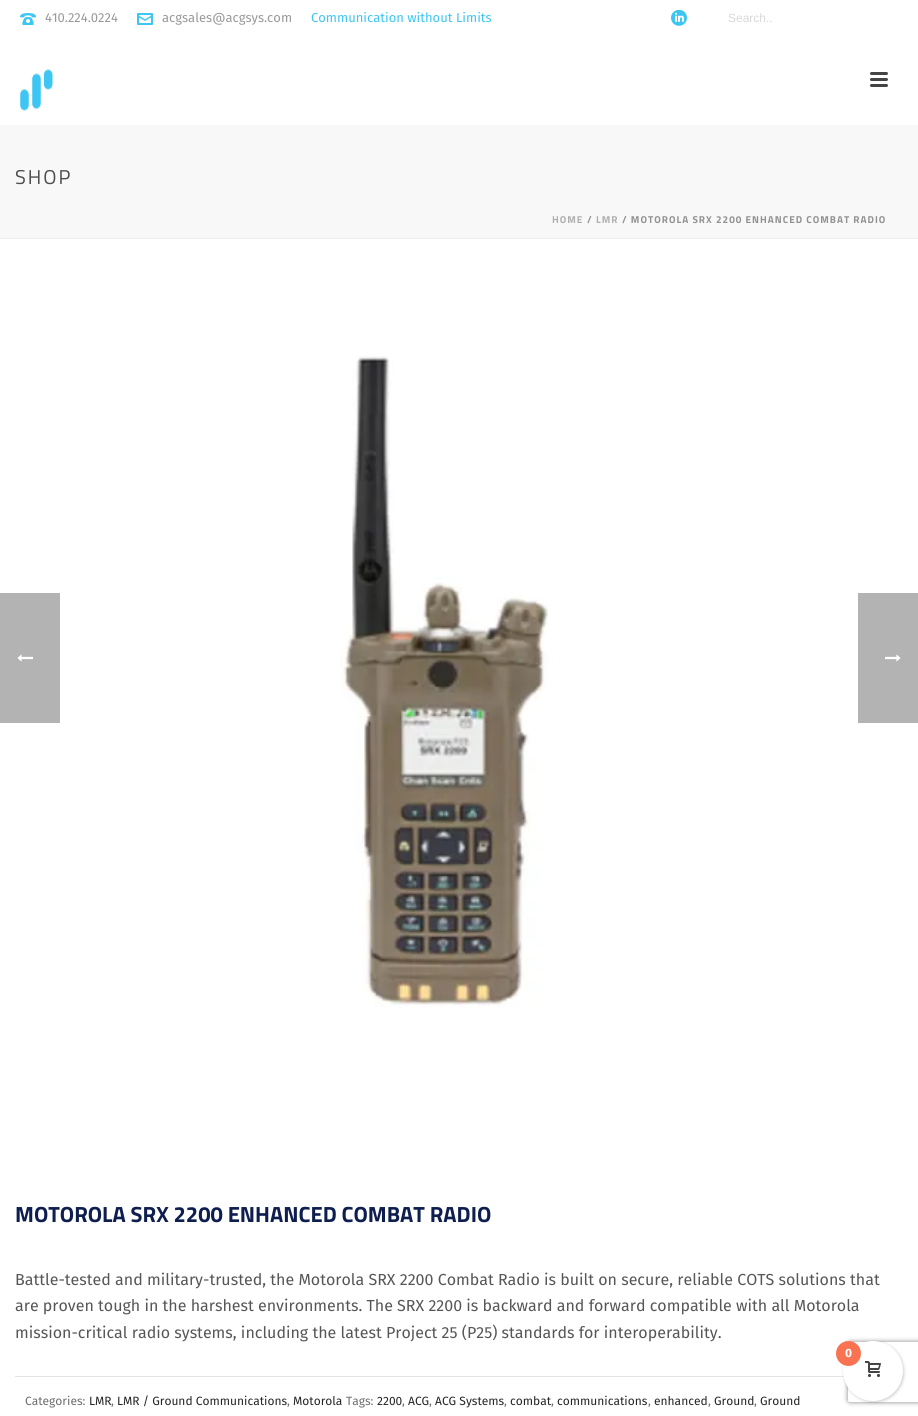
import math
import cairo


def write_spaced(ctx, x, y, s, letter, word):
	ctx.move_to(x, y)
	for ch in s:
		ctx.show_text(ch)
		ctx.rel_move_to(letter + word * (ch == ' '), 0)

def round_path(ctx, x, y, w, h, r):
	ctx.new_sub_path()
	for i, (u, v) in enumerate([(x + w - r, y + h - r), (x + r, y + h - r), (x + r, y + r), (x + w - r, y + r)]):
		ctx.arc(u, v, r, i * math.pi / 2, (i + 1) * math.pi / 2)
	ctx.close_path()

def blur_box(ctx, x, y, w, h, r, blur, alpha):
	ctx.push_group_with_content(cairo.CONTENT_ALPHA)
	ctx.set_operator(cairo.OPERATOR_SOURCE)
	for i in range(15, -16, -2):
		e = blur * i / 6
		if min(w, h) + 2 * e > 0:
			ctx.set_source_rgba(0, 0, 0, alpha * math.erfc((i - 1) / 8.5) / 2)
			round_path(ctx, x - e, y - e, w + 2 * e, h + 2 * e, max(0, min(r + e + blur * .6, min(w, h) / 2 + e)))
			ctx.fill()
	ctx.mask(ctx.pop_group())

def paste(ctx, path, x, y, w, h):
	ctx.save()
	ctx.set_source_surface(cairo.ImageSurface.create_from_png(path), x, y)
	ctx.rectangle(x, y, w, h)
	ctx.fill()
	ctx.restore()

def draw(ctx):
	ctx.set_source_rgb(1, 1, 1)
	ctx.paint()
	ctx.set_source_rgb(0.929, 0.929, 0.929)
	ctx.rectangle(0, 238, 918, 1)
	ctx.fill()
	paste(ctx, 'media/1.png', 20, 13, 16, 12)
	ctx.select_font_face('Fira Sans')
	ctx.set_font_size(13)
	ctx.set_source_rgb(0.6, 0.6, 0.6)
	ctx.move_to(45, 22)
	ctx.show_text('410.224.0224')
	paste(ctx, 'media/2.png', 137, 13, 16, 12)
	ctx.move_to(162, 22)
	ctx.show_text('acgsales@acgsys.com')
	ctx.set_source_rgb(0.239, 0.776, 0.953)
	ctx.move_to(311, 22)
	ctx.show_text('Communication without Limits')
	paste(ctx, 'media/3.png', 671, 10, 16, 16)
	ctx.select_font_face('Liberation Sans')
	ctx.set_font_size(12)
	ctx.set_source_rgb(0.847, 0.847, 0.847)
	ctx.move_to(728, 22)
	ctx.show_text('Search..')
	paste(ctx, 'media/4.png', 20, 69, 33, 42)
	ctx.set_source_rgb(0.267, 0.267, 0.267)
	round_path(ctx, 870, 72, 18, 3, 1.5)
	ctx.fill()
	round_path(ctx, 870, 78, 18, 3, 1.5)
	ctx.fill()
	round_path(ctx, 870, 84, 18, 3, 1.5)
	ctx.fill()
	ctx.set_source_rgb(0.969, 0.969, 0.969)
	ctx.rectangle(0, 125, 918, 113)
	ctx.fill()
	ctx.select_font_face('Titillium Web')
	ctx.set_font_size(20)
	ctx.set_source_rgb(0.302, 0.302, 0.302)
	write_spaced(ctx, 15, 184, 'SHOP', 2, 0)
	ctx.select_font_face('Titillium Web', cairo.FONT_SLANT_NORMAL, cairo.FONT_WEIGHT_BOLD)
	ctx.set_font_size(10)
	ctx.set_source_rgb(0.686, 0.686, 0.686)
	write_spaced(ctx, 552, 223, 'HOME', 1, 0)
	ctx.set_source_rgb(0.569, 0.569, 0.569)
	write_spaced(ctx, 587, 223, '/', 1, 0)
	ctx.set_source_rgb(0.686, 0.686, 0.686)
	write_spaced(ctx, 596, 223, 'LMR', 1, 0)
	ctx.set_source_rgb(0.569, 0.569, 0.569)
	write_spaced(ctx, 622, 223, '/ MOTOROLA SRX 2200 ENHANCED COMBAT RADIO', 1, 0)
	paste(ctx, 'media/5.png', 340, 356, 209, 651)
	ctx.set_font_size(22)
	ctx.set_source_rgb(0.051, 0.118, 0.31)
	ctx.move_to(15, 1222)
	ctx.show_text('MOTOROLA SRX 2200 ENHANCED COMBAT RADIO')
	ctx.select_font_face('Fira Sans')
	ctx.set_font_size(16)
	ctx.set_source_rgb(0.337, 0.337, 0.337)
	for x, y, s in [
		(15, 1285, 'Battle-tested and military-trusted, the Motorola SRX 2200 Combat Radio is built on secure, reliable COTS solutions that'),
		(15, 1311, 'are proven tough in the harshest environments. The SRX 2200 is backward and forward compatible with all Motorola'),
		(15, 1338, 'mission-critical radio systems, including the latest Project 25 (P25) standards for interoperability.'),
	]:
		ctx.move_to(x, y)
		ctx.show_text(s)
	ctx.set_source_rgb(0.89, 0.89, 0.89)
	ctx.rectangle(15, 1376, 888, 1)
	ctx.fill()
	ctx.set_font_size(12)
	ctx.set_source_rgb(0.427, 0.427, 0.427)
	ctx.move_to(25, 1405)
	ctx.show_text('Categories:')
	ctx.set_source_rgb(0.145, 0.145, 0.145)
	ctx.move_to(89, 1405)
	ctx.show_text('LMR')
	ctx.set_source_rgb(0.427, 0.427, 0.427)
	ctx.move_to(111, 1405)
	ctx.show_text(',')
	ctx.set_source_rgb(0.145, 0.145, 0.145)
	ctx.move_to(117, 1405)
	ctx.show_text('LMR / Ground Communications')
	ctx.set_source_rgb(0.427, 0.427, 0.427)
	ctx.move_to(287, 1405)
	ctx.show_text(',')
	ctx.set_source_rgb(0.145, 0.145, 0.145)
	ctx.move_to(293, 1405)
	ctx.show_text('Motorola')
	ctx.set_source_rgb(0.427, 0.427, 0.427)
	ctx.move_to(346, 1405)
	ctx.show_text('Tags:')
	ctx.set_source_rgb(0.145, 0.145, 0.145)
	ctx.move_to(377, 1405)
	ctx.show_text('2200')
	ctx.set_source_rgb(0.427, 0.427, 0.427)
	ctx.move_to(402, 1405)
	ctx.show_text(',')
	ctx.set_source_rgb(0.145, 0.145, 0.145)
	ctx.move_to(408, 1405)
	ctx.show_text('ACG')
	ctx.set_source_rgb(0.427, 0.427, 0.427)
	ctx.move_to(429, 1405)
	ctx.show_text(',')
	ctx.set_source_rgb(0.145, 0.145, 0.145)
	ctx.move_to(435, 1405)
	ctx.show_text('ACG Systems')
	ctx.set_source_rgb(0.427, 0.427, 0.427)
	ctx.move_to(504, 1405)
	ctx.show_text(',')
	ctx.set_source_rgb(0.145, 0.145, 0.145)
	ctx.move_to(510, 1405)
	ctx.show_text('combat')
	ctx.set_source_rgb(0.427, 0.427, 0.427)
	ctx.move_to(551, 1405)
	ctx.show_text(',')
	ctx.set_source_rgb(0.145, 0.145, 0.145)
	ctx.move_to(557, 1405)
	ctx.show_text('communications')
	ctx.set_source_rgb(0.427, 0.427, 0.427)
	ctx.move_to(648, 1405)
	ctx.show_text(',')
	ctx.set_source_rgb(0.145, 0.145, 0.145)
	ctx.move_to(654, 1405)
	ctx.show_text('enhanced')
	ctx.set_source_rgb(0.427, 0.427, 0.427)
	ctx.move_to(708, 1405)
	ctx.show_text(',')
	ctx.set_source_rgb(0.145, 0.145, 0.145)
	ctx.move_to(714, 1405)
	ctx.show_text('Ground')
	ctx.set_source_rgb(0.427, 0.427, 0.427)
	ctx.move_to(754, 1405)
	ctx.show_text(',')
	ctx.set_source_rgb(0.145, 0.145, 0.145)
	ctx.move_to(760, 1405)
	ctx.show_text('Ground')
	ctx.set_source_rgb(0.702, 0.702, 0.702)
	ctx.rectangle(0, 593, 60, 130)
	ctx.fill()
	paste(ctx, 'media/6.png', 17, 654, 16, 8)
	ctx.rectangle(858, 593, 60, 130)
	ctx.fill()
	paste(ctx, 'media/7.png', 885, 654, 16, 8)
	ctx.save()
	ctx.set_fill_rule(cairo.FILL_RULE_EVEN_ODD)
	ctx.new_path()
	ctx.move_to(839, 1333)
	ctx.line_to(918, 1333)
	ctx.line_to(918, 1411)
	ctx.line_to(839, 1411)
	ctx.close_path()
	ctx.move_to(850, 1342)
	ctx.line_to(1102, 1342)
	ctx.curve_to(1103, 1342, 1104, 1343, 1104, 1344)
	ctx.line_to(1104, 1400)
	ctx.curve_to(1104, 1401, 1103, 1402, 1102, 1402)
	ctx.line_to(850, 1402)
	ctx.curve_to(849, 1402, 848, 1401, 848, 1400)
	ctx.line_to(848, 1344)
	ctx.curve_to(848, 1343, 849, 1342, 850, 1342)
	ctx.close_path()
	ctx.clip()
	ctx.set_source_rgb(0.502, 0.502, 0.502)
	blur_box(ctx, 848, 1342, 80, 60, 2, 2.5, 1)
	ctx.restore()
	ctx.set_source_rgb(0, 0, 0)
	blur_box(ctx, 844, 1342, 60, 60, 30, 1.5, 0.2)
	ctx.set_source_rgb(1, 1, 1)
	ctx.arc(873, 1371, 30, 0, 2 * math.pi)
	ctx.fill()
	ctx.set_source_rgb(0.976, 0.451, 0.322)
	ctx.arc(848.5, 1353.5, 12.5, 0, 2 * math.pi)
	ctx.fill()
	ctx.select_font_face('Fira Sans', cairo.FONT_SLANT_NORMAL, cairo.FONT_WEIGHT_BOLD)
	ctx.set_source_rgb(1, 1, 1)
	ctx.move_to(845, 1357)
	ctx.show_text('0')
	paste(ctx, 'media/8.png', 865, 1361, 16, 16)


surface = cairo.ImageSurface(cairo.FORMAT_RGB24, 918, 1416)
ctx = cairo.Context(surface)
options = cairo.FontOptions()
options.set_hint_metrics(cairo.HINT_METRICS_OFF)
options.set_hint_style(cairo.HINT_STYLE_NONE)
ctx.set_font_options(options)
ctx.set_miter_limit(4)
draw(ctx)
surface.write_to_png('image.png')
